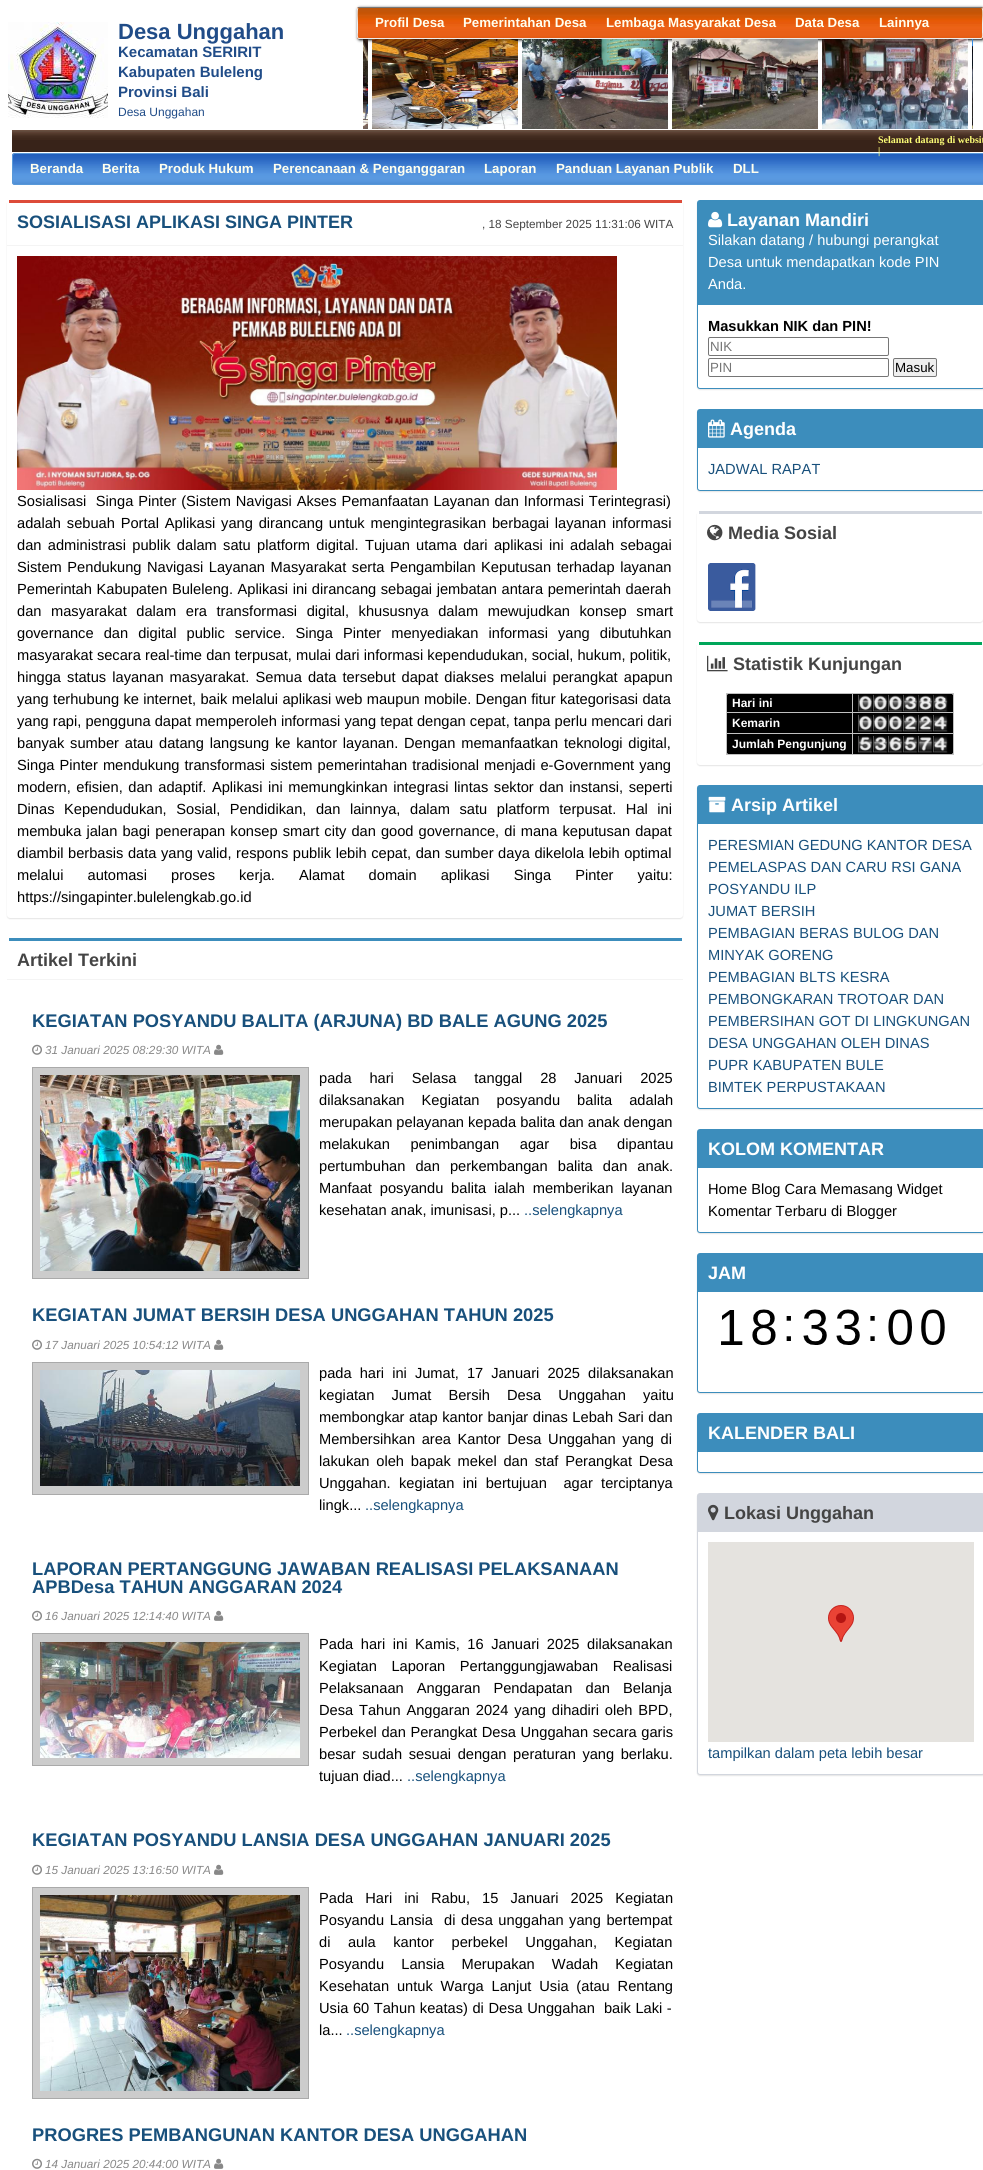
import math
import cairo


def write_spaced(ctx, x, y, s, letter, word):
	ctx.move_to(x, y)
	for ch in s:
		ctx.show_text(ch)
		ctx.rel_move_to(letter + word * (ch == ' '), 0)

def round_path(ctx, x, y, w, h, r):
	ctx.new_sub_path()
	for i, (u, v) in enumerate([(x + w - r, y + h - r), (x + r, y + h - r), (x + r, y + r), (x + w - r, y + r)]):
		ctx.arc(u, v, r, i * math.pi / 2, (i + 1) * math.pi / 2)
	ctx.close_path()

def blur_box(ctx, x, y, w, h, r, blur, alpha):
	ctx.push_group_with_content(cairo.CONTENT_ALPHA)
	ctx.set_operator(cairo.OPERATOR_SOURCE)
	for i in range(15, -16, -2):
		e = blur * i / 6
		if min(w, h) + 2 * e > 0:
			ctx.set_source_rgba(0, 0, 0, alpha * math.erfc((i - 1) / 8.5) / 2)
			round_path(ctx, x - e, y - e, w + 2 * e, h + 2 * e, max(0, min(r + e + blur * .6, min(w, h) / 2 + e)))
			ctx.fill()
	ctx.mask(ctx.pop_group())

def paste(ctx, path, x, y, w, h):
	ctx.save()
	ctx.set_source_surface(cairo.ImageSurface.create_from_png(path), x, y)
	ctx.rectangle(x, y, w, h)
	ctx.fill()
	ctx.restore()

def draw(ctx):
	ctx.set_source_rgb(1, 1, 1)
	ctx.paint()
	paste(ctx, 'media/1.png', 8, 22, 100, 96)
	ctx.select_font_face('Liberation Sans', cairo.FONT_SLANT_NORMAL, cairo.FONT_WEIGHT_BOLD)
	ctx.set_font_size(22)
	ctx.set_source_rgb(0.125, 0.298, 0.533)
	ctx.move_to(118, 39)
	ctx.show_text('Desa Unggahan')
	ctx.set_font_size(15)
	for x, y, s in [
		(118, 57, 'Kecamatan SERIRIT'),
		(118, 77, 'Kabupaten Buleleng'),
		(118, 97, 'Provinsi Bali'),
	]:
		ctx.move_to(x, y)
		ctx.show_text(s)
	ctx.select_font_face('Liberation Sans')
	ctx.set_font_size(12)
	ctx.move_to(118, 116)
	ctx.show_text('Desa Unggahan')
	ctx.set_source_rgb(0, 0, 0)
	blur_box(ctx, 358, 8, 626, 32, 2, 1.5, 1)
	paste(ctx, 'media/2.png', 357, 7, 626, 32)
	ctx.new_path()
	ctx.move_to(358, 8)
	ctx.line_to(359, 7.5)
	ctx.line_to(981, 7.5)
	ctx.line_to(982, 8)
	ctx.set_source_rgb(0.467, 0.467, 0.467)
	ctx.set_line_width(1)
	ctx.stroke()
	ctx.new_path()
	ctx.move_to(982, 8)
	ctx.curve_to(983.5, 9.5, 982.5, 20.5, 982.5, 23)
	ctx.line_to(982.5, 32.5)
	ctx.curve_to(982.5, 32.5, 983.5, 38.5, 981, 38.5)
	ctx.line_to(359, 38.5)
	ctx.curve_to(356.5, 38.5, 357.5, 32.5, 357.5, 32.5)
	ctx.line_to(357.5, 23)
	ctx.curve_to(357.5, 20.5, 356.5, 9.5, 358, 8)
	ctx.set_source_rgb(0.933, 0.933, 0.933)
	ctx.stroke()
	ctx.select_font_face('Liberation Sans', cairo.FONT_SLANT_NORMAL, cairo.FONT_WEIGHT_BOLD)
	ctx.set_font_size(13.3)
	ctx.set_source_rgb(1, 1, 0.937)
	for x, y, s in [
		(375, 27, 'Profil Desa'),
		(463, 27, 'Pemerintahan Desa'),
		(606, 27, 'Lembaga Masyarakat Desa'),
		(795, 27, 'Data Desa'),
		(879, 27, 'Lainnya'),
	]:
		ctx.move_to(x, y)
		ctx.show_text(s)
	paste(ctx, 'media/3.png', 363, 39, 5, 90)
	paste(ctx, 'media/4.png', 372, 39, 146, 90)
	paste(ctx, 'media/5.png', 522, 39, 146, 90)
	paste(ctx, 'media/6.png', 672, 39, 146, 90)
	paste(ctx, 'media/7.png', 822, 39, 146, 90)
	paste(ctx, 'media/8.png', 972, 39, 1, 90)
	paste(ctx, 'media/9.png', 12, 130, 971, 22)
	ctx.select_font_face('Liberation Serif', cairo.FONT_SLANT_NORMAL, cairo.FONT_WEIGHT_BOLD)
	ctx.set_font_size(10)
	ctx.set_source_rgb(0.996, 0.996, 0.467)
	ctx.move_to(878, 143)
	ctx.show_text('Selamat datang di websit')
	paste(ctx, 'media/10.png', 12, 153, 971, 32)
	round_path(ctx, 12.5, 153.5, 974, 31, 2.5)
	ctx.set_source_rgb(0.345, 0.596, 0.847)
	ctx.stroke()
	ctx.set_source_rgb(0.996, 0.996, 0.467)
	ctx.move_to(878, 154)
	ctx.show_text('|')
	ctx.select_font_face('Liberation Sans', cairo.FONT_SLANT_NORMAL, cairo.FONT_WEIGHT_BOLD)
	ctx.set_font_size(13.3)
	ctx.set_source_rgb(1, 1, 0.937)
	for x, y, s in [
		(30, 173, 'Beranda'),
		(102, 173, 'Berita'),
		(159, 173, 'Produk Hukum'),
		(273, 173, 'Perencanaan & Penganggaran'),
		(484, 173, 'Laporan'),
		(556, 173, 'Panduan Layanan Publik'),
		(733, 173, 'DLL'),
	]:
		ctx.move_to(x, y)
		ctx.show_text(s)
	ctx.set_source_rgb(0, 0, 0)
	blur_box(ctx, 7, 201, 676, 718, 3, 0.5, 0.1)
	ctx.set_source_rgb(1, 1, 1)
	round_path(ctx, 7, 200, 676, 718, 3)
	ctx.fill()
	ctx.set_source_rgb(0.867, 0.294, 0.224)
	ctx.rectangle(9, 200, 673, 3)
	ctx.fill()
	ctx.set_source_rgb(0.957, 0.957, 0.957)
	ctx.rectangle(7, 245, 676, 1)
	ctx.fill()
	ctx.set_font_size(18)
	ctx.set_source_rgb(0.094, 0.314, 0.486)
	ctx.move_to(17, 228)
	ctx.show_text('SOSIALISASI APLIKASI SINGA PINTER')
	ctx.select_font_face('Liberation Sans')
	ctx.set_font_size(11.75)
	ctx.set_source_rgb(0.267, 0.267, 0.267)
	ctx.move_to(482, 228)
	ctx.show_text(', 18 September 2025 11:31:06 WITA')
	paste(ctx, 'media/11.png', 17, 256, 600, 234)
	ctx.set_font_size(14.65)
	ctx.set_source_rgb(0, 0, 0)
	write_spaced(ctx, 17, 506, 'Sosialisasi  Singa Pinter (Sistem Navigasi Akses Pemanfaatan Layanan dan Informasi Terintegrasi)', 0, 0.75)
	write_spaced(ctx, 17, 528, 'adalah sebuah Portal Aplikasi yang dirancang untuk mengintegrasikan berbagai layanan informasi', 0, 1.75)
	write_spaced(ctx, 17, 550, 'dan administrasi publik dalam satu platform digital. Tujuan utama dari aplikasi ini adalah sebagai', 0, 2.25)
	write_spaced(ctx, 17, 572, 'Sistem Pendukung Navigasi Layanan Masyarakat serta Pengambilan Keputusan terhadap layanan', 0, 1.5)
	write_spaced(ctx, 17, 594, 'Pemerintah Kabupaten Buleleng. Aplikasi ini dirancang sebagai jembatan antara pemerintah daerah', 0, 0.5)
	write_spaced(ctx, 17, 616, 'dan masyarakat dalam era transformasi digital, khususnya dalam mewujudkan konsep smart', 0, 5.5)
	write_spaced(ctx, 17, 638, 'governance dan digital public service. Singa Pinter menyediakan informasi yang dibutuhkan', 0, 6)
	write_spaced(ctx, 17, 660, 'masyarakat secara real-time dan terpusat, mulai dari informasi kependudukan, social, hukum, politik,', 0, 0.1)
	write_spaced(ctx, 17, 682, 'hingga status layanan masyarakat. Semua data tersebut dapat diakses melalui perangkat apapun', 0, 2)
	write_spaced(ctx, 17, 704, 'yang terhubung ke internet, baik melalui aplikasi web maupun mobile. Dengan fitur kategorisasi data', 0, 0.25)
	ctx.move_to(17, 726)
	ctx.show_text('yang rapi, pengguna dapat memperoleh informasi yang tepat dengan cepat, tanpa perlu mencari dari')
	write_spaced(ctx, 17, 748, 'banyak sumber atau datang langsung ke kantor layanan. Dengan memanfaatkan teknologi digital,', 0, 1.75)
	write_spaced(ctx, 17, 770, 'Singa Pinter mendukung transformasi sistem pemerintahan tradisional menjadi e-Government yang', 0, 1)
	write_spaced(ctx, 17, 792, 'modern, efisien, dan adaptif. Aplikasi ini memungkinkan integrasi lintas sektor dan instansi, seperti', 0, 1.5)
	write_spaced(ctx, 17, 814, 'Dinas Kependudukan, Sosial, Pendidikan, dan lainnya, dalam satu platform terpusat. Hal ini', 0, 5.5)
	write_spaced(ctx, 17, 836, 'membuka jalan bagi penerapan konsep smart city dan good governance, di mana keputusan dapat', 0, 1)
	write_spaced(ctx, 17, 858, 'diambil berbasis data yang valid, respons publik lebih cepat, dan sumber daya dikelola lebih optimal', 0, 0.5)
	write_spaced(ctx, 17, 880, 'melalui automasi proses kerja. Alamat domain aplikasi Singa Pinter yaitu:', 0, 20)
	ctx.move_to(17, 902)
	ctx.show_text('https://singapinter.bulelengkab.go.id')
	ctx.set_source_rgb(0.235, 0.553, 0.737)
	ctx.rectangle(9, 938, 673, 3)
	ctx.fill()
	ctx.set_source_rgb(0.957, 0.957, 0.957)
	ctx.rectangle(7, 979, 676, 1)
	ctx.fill()
	ctx.select_font_face('Liberation Sans', cairo.FONT_SLANT_NORMAL, cairo.FONT_WEIGHT_BOLD)
	ctx.set_font_size(18)
	ctx.set_source_rgb(0.267, 0.267, 0.267)
	ctx.move_to(17, 966)
	ctx.show_text('Artikel Terkini')
	ctx.set_font_size(18.3)
	ctx.set_source_rgb(0.094, 0.314, 0.486)
	ctx.move_to(32, 1027)
	ctx.show_text('KEGIATAN POSYANDU BALITA (ARJUNA) BD BALE AGUNG 2025')
	paste(ctx, 'media/12.png', 32, 1044, 10, 11)
	ctx.select_font_face('Liberation Sans', cairo.FONT_SLANT_ITALIC)
	ctx.set_font_size(11.75)
	ctx.set_source_rgb(0.533, 0.533, 0.533)
	ctx.move_to(45, 1054)
	ctx.show_text('31 Januari 2025 08:29:30 WITA')
	paste(ctx, 'media/13.png', 214, 1044, 10, 11)
	ctx.set_source_rgb(0.8, 0.8, 0.8)
	ctx.rectangle(32.5, 1067.5, 276, 211)
	ctx.fill_preserve()
	ctx.set_source_rgb(0.667, 0.667, 0.667)
	ctx.stroke()
	paste(ctx, 'media/14.png', 40, 1075, 260, 196)
	ctx.select_font_face('Liberation Sans')
	ctx.set_font_size(14.65)
	ctx.set_source_rgb(0, 0, 0)
	write_spaced(ctx, 319, 1083, 'pada hari Selasa tanggal 28 Januari 2025', 0, 13.75)
	write_spaced(ctx, 319, 1105, 'dilaksanakan Kegiatan posyandu balita adalah', 0, 13)
	ctx.move_to(319, 1127)
	ctx.show_text('merupakan pelayanan kepada balita dan anak dengan')
	write_spaced(ctx, 319, 1149, 'melakukan penimbangan agar bisa dipantau', 0, 16.5)
	write_spaced(ctx, 319, 1171, 'pertumbuhan dan perkembangan balita dan anak.', 0, 6)
	write_spaced(ctx, 319, 1193, 'Manfaat posyandu balita ialah memberikan layanan', 0, 3.75)
	ctx.move_to(319, 1215)
	ctx.show_text('kesehatan anak, imunisasi, p...')
	ctx.set_source_rgb(0.094, 0.314, 0.486)
	ctx.move_to(524, 1215)
	ctx.show_text('..selengkapnya')
	ctx.select_font_face('Liberation Sans', cairo.FONT_SLANT_NORMAL, cairo.FONT_WEIGHT_BOLD)
	ctx.set_font_size(18.3)
	ctx.move_to(32, 1321)
	ctx.show_text('KEGIATAN JUMAT BERSIH DESA UNGGAHAN TAHUN 2025')
	paste(ctx, 'media/12.png', 32, 1339, 10, 11)
	ctx.select_font_face('Liberation Sans', cairo.FONT_SLANT_ITALIC)
	ctx.set_font_size(11.75)
	ctx.set_source_rgb(0.533, 0.533, 0.533)
	ctx.move_to(45, 1349)
	ctx.show_text('17 Januari 2025 10:54:12 WITA')
	paste(ctx, 'media/13.png', 214, 1339, 10, 11)
	ctx.set_source_rgb(0.8, 0.8, 0.8)
	ctx.rectangle(32.5, 1362.5, 276, 132)
	ctx.fill_preserve()
	ctx.set_source_rgb(0.667, 0.667, 0.667)
	ctx.stroke()
	paste(ctx, 'media/15.png', 40, 1370, 260, 116)
	ctx.select_font_face('Liberation Sans')
	ctx.set_font_size(14.65)
	ctx.set_source_rgb(0, 0, 0)
	write_spaced(ctx, 319, 1378, 'pada hari ini Jumat, 17 Januari 2025 dilaksanakan', 0, 4)
	write_spaced(ctx, 319, 1400, 'kegiatan Jumat Bersih Desa Unggahan yaitu', 0, 13)
	write_spaced(ctx, 319, 1422, 'membongkar atap kantor banjar dinas Lebah Sari dan', 0, 0.5)
	write_spaced(ctx, 319, 1444, 'Membersihkan area Kantor Desa Unggahan yang di', 0, 2.5)
	write_spaced(ctx, 319, 1466, 'lakukan oleh bapak mekel dan staf Perangkat Desa', 0, 2.75)
	write_spaced(ctx, 319, 1488, 'Unggahan. kegiatan ini bertujuan  agar terciptanya', 0, 4.25)
	ctx.move_to(319, 1510)
	ctx.show_text('lingk...')
	ctx.set_source_rgb(0.094, 0.314, 0.486)
	ctx.move_to(365, 1510)
	ctx.show_text('..selengkapnya')
	ctx.select_font_face('Liberation Sans', cairo.FONT_SLANT_NORMAL, cairo.FONT_WEIGHT_BOLD)
	ctx.set_font_size(18.3)
	ctx.move_to(32, 1575)
	ctx.show_text('LAPORAN PERTANGGUNG JAWABAN REALISASI PELAKSANAAN')
	ctx.move_to(32, 1593)
	ctx.show_text('APBDesa TAHUN ANGGARAN 2024')
	paste(ctx, 'media/12.png', 32, 1610, 10, 11)
	ctx.select_font_face('Liberation Sans', cairo.FONT_SLANT_ITALIC)
	ctx.set_font_size(11.75)
	ctx.set_source_rgb(0.533, 0.533, 0.533)
	ctx.move_to(45, 1620)
	ctx.show_text('16 Januari 2025 12:14:40 WITA')
	paste(ctx, 'media/13.png', 214, 1610, 10, 11)
	ctx.set_source_rgb(0.8, 0.8, 0.8)
	ctx.rectangle(32.5, 1633.5, 276, 132)
	ctx.fill_preserve()
	ctx.set_source_rgb(0.667, 0.667, 0.667)
	ctx.stroke()
	paste(ctx, 'media/16.png', 40, 1642, 260, 116)
	ctx.select_font_face('Liberation Sans')
	ctx.set_font_size(14.65)
	ctx.set_source_rgb(0, 0, 0)
	write_spaced(ctx, 319, 1649, 'Pada hari ini Kamis, 16 Januari 2025 dilaksanakan', 0, 3.5)
	write_spaced(ctx, 319, 1671, 'Kegiatan Laporan Pertanggungjawaban Realisasi', 0, 10.5)
	write_spaced(ctx, 319, 1693, 'Pelaksanaan Anggaran Pendapatan dan Belanja', 0, 9)
	write_spaced(ctx, 319, 1715, 'Desa Tahun Anggaran 2024 yang dihadiri oleh BPD,', 0, 1.75)
	write_spaced(ctx, 319, 1737, 'Perbekel dan Perangkat Desa Unggahan secara garis', 0, 0.5)
	write_spaced(ctx, 319, 1759, 'besar sudah sesuai dengan peraturan yang berlaku.', 0, 2.5)
	ctx.move_to(319, 1781)
	ctx.show_text('tujuan diad...')
	ctx.set_source_rgb(0.094, 0.314, 0.486)
	ctx.move_to(407, 1781)
	ctx.show_text('..selengkapnya')
	ctx.select_font_face('Liberation Sans', cairo.FONT_SLANT_NORMAL, cairo.FONT_WEIGHT_BOLD)
	ctx.set_font_size(18.3)
	ctx.move_to(32, 1846)
	ctx.show_text('KEGIATAN POSYANDU LANSIA DESA UNGGAHAN JANUARI 2025')
	paste(ctx, 'media/12.png', 32, 1864, 10, 11)
	ctx.select_font_face('Liberation Sans', cairo.FONT_SLANT_ITALIC)
	ctx.set_font_size(11.75)
	ctx.set_source_rgb(0.533, 0.533, 0.533)
	ctx.move_to(45, 1874)
	ctx.show_text('15 Januari 2025 13:16:50 WITA')
	paste(ctx, 'media/13.png', 214, 1864, 10, 11)
	ctx.set_source_rgb(0.8, 0.8, 0.8)
	ctx.rectangle(32.5, 1887.5, 276, 211)
	ctx.fill_preserve()
	ctx.set_source_rgb(0.667, 0.667, 0.667)
	ctx.stroke()
	paste(ctx, 'media/17.png', 40, 1895, 260, 196)
	ctx.select_font_face('Liberation Sans')
	ctx.set_font_size(14.65)
	ctx.set_source_rgb(0, 0, 0)
	write_spaced(ctx, 319, 1903, 'Pada Hari ini Rabu, 15 Januari 2025 Kegiatan', 0, 8)
	write_spaced(ctx, 319, 1925, 'Posyandu Lansia  di desa unggahan yang bertempat', 0, 1.5)
	write_spaced(ctx, 319, 1947, 'di aula kantor perbekel Unggahan, Kegiatan', 0, 13.5)
	write_spaced(ctx, 319, 1969, 'Posyandu Lansia Merupakan Wadah Kegiatan', 0, 13)
	write_spaced(ctx, 319, 1991, 'Kesehatan untuk Warga Lanjut Usia (atau Rentang', 0, 3.75)
	write_spaced(ctx, 319, 2013, 'Usia 60 Tahun keatas) di Desa Unggahan  baik Laki -', 0, 0.5)
	ctx.move_to(319, 2035)
	ctx.show_text('la...')
	ctx.set_source_rgb(0.094, 0.314, 0.486)
	ctx.move_to(346, 2035)
	ctx.show_text('..selengkapnya')
	ctx.select_font_face('Liberation Sans', cairo.FONT_SLANT_NORMAL, cairo.FONT_WEIGHT_BOLD)
	ctx.set_font_size(18.3)
	ctx.move_to(32, 2141)
	ctx.show_text('PROGRES PEMBANGUNAN KANTOR DESA UNGGAHAN')
	paste(ctx, 'media/12.png', 32, 2158, 10, 11)
	ctx.select_font_face('Liberation Sans', cairo.FONT_SLANT_ITALIC)
	ctx.set_font_size(11.75)
	ctx.set_source_rgb(0.533, 0.533, 0.533)
	ctx.move_to(45, 2168)
	ctx.show_text('14 Januari 2025 20:44:00 WITA')
	paste(ctx, 'media/13.png', 214, 2158, 10, 11)
	ctx.set_source_rgb(0, 0, 0)
	blur_box(ctx, 697, 201, 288, 189, 3, 0.5, 0.1)
	ctx.set_source_rgb(1, 1, 1)
	round_path(ctx, 697.5, 200.5, 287, 188, 2.5)
	ctx.fill_preserve()
	ctx.set_source_rgb(0.235, 0.553, 0.737)
	ctx.stroke()
	ctx.rectangle(698, 201, 285, 104)
	ctx.fill()
	paste(ctx, 'media/18.png', 708, 211, 15, 17)
	ctx.select_font_face('Liberation Sans', cairo.FONT_SLANT_NORMAL, cairo.FONT_WEIGHT_BOLD)
	ctx.set_font_size(18)
	ctx.set_source_rgb(1, 1, 1)
	ctx.move_to(727, 226)
	ctx.show_text('Layanan Mandiri')
	ctx.select_font_face('Liberation Sans')
	ctx.set_font_size(14.65)
	for x, y, s in [
		(708, 245, 'Silakan datang / hubungi perangkat'),
		(708, 267, 'Desa untuk mendapatkan kode PIN'),
		(708, 289, 'Anda.'),
	]:
		ctx.move_to(x, y)
		ctx.show_text(s)
	ctx.select_font_face('Liberation Sans', cairo.FONT_SLANT_NORMAL, cairo.FONT_WEIGHT_BOLD)
	ctx.set_source_rgb(0, 0, 0)
	ctx.move_to(708, 331)
	ctx.show_text('Masukkan NIK dan PIN!')
	round_path(ctx, 708.5, 337.5, 180, 18, 1.5)
	ctx.set_source_rgb(0.463, 0.463, 0.463)
	ctx.stroke()
	ctx.select_font_face('Liberation Sans')
	ctx.set_font_size(13.3)
	ctx.set_source_rgb(0.459, 0.459, 0.459)
	ctx.move_to(710, 351)
	ctx.show_text('NIK')
	round_path(ctx, 708.5, 358.5, 180, 18, 1.5)
	ctx.set_source_rgb(0.463, 0.463, 0.463)
	ctx.stroke()
	ctx.set_source_rgb(0.459, 0.459, 0.459)
	ctx.move_to(710, 372)
	ctx.show_text('PIN')
	ctx.set_source_rgb(0.937, 0.937, 0.937)
	round_path(ctx, 893.5, 358.5, 43, 18, 1.5)
	ctx.fill_preserve()
	ctx.set_source_rgb(0.463, 0.463, 0.463)
	ctx.stroke()
	ctx.set_source_rgb(0, 0, 0)
	ctx.move_to(895, 372)
	ctx.show_text('Masuk')
	ctx.set_source_rgb(0, 0, 0)
	blur_box(ctx, 697, 410, 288, 82, 3, 0.5, 0.1)
	ctx.set_source_rgb(1, 1, 1)
	round_path(ctx, 697.5, 409.5, 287, 81, 2.5)
	ctx.fill_preserve()
	ctx.set_source_rgb(0.235, 0.553, 0.737)
	ctx.stroke()
	ctx.rectangle(698, 410, 285, 38)
	ctx.fill()
	paste(ctx, 'media/19.png', 708, 419, 17, 19)
	ctx.select_font_face('Liberation Sans', cairo.FONT_SLANT_NORMAL, cairo.FONT_WEIGHT_BOLD)
	ctx.set_font_size(18)
	ctx.set_source_rgb(1, 1, 1)
	ctx.move_to(730, 435)
	ctx.show_text('Agenda')
	ctx.select_font_face('Liberation Sans')
	ctx.set_font_size(14.65)
	ctx.set_source_rgb(0.094, 0.314, 0.486)
	ctx.move_to(708, 474)
	ctx.show_text('JADWAL RAPAT')
	ctx.set_source_rgb(0, 0, 0)
	blur_box(ctx, 697, 512, 286, 111, 3, 0.5, 0.1)
	ctx.set_source_rgb(1, 1, 1)
	round_path(ctx, 697, 511, 286, 111, 3)
	ctx.fill()
	ctx.set_source_rgb(0.824, 0.839, 0.871)
	ctx.rectangle(699, 511, 283, 3)
	ctx.fill()
	paste(ctx, 'media/20.png', 707, 524, 16, 17)
	ctx.select_font_face('Liberation Sans', cairo.FONT_SLANT_NORMAL, cairo.FONT_WEIGHT_BOLD)
	ctx.set_font_size(18)
	ctx.set_source_rgb(0.267, 0.267, 0.267)
	ctx.move_to(728, 539)
	ctx.show_text('Media Sosial')
	paste(ctx, 'media/21.png', 708, 563, 48, 48)
	ctx.set_source_rgb(0, 0, 0)
	blur_box(ctx, 697, 643, 286, 123, 3, 0.5, 0.1)
	ctx.set_source_rgb(1, 1, 1)
	round_path(ctx, 697, 642, 286, 123, 3)
	ctx.fill()
	ctx.set_source_rgb(0, 0.651, 0.353)
	ctx.rectangle(699, 642, 283, 3)
	ctx.fill()
	paste(ctx, 'media/22.png', 707, 655, 21, 17)
	ctx.set_source_rgb(0.267, 0.267, 0.267)
	ctx.move_to(733, 670)
	ctx.show_text('Statistik Kunjungan')
	ctx.set_source_rgb(0, 0, 0)
	round_path(ctx, 726, 693, 228, 62, 5)
	ctx.fill()
	ctx.set_source_rgb(0.753, 0.753, 0.753)
	ctx.rectangle(726, 693, 228, 1)
	ctx.rectangle(953, 693, 1, 62)
	ctx.rectangle(726, 754, 228, 1)
	ctx.rectangle(726, 693, 1, 62)
	ctx.rectangle(852, 733, 1, 22)
	ctx.rectangle(852, 733, 102, 1)
	ctx.rectangle(852, 712, 1, 22)
	ctx.rectangle(852, 712, 102, 1)
	ctx.rectangle(852, 693, 1, 20)
	ctx.rectangle(726, 712, 127, 1)
	ctx.fill()
	ctx.set_font_size(12)
	ctx.set_source_rgb(1, 1, 1)
	ctx.move_to(732, 707)
	ctx.show_text('Hari ini')
	paste(ctx, 'media/23.png', 858, 694, 15, 18)
	paste(ctx, 'media/23.png', 873, 694, 15, 18)
	paste(ctx, 'media/23.png', 888, 694, 15, 18)
	paste(ctx, 'media/24.png', 903, 694, 15, 18)
	paste(ctx, 'media/25.png', 918, 694, 15, 18)
	paste(ctx, 'media/26.png', 933, 694, 15, 18)
	ctx.set_source_rgb(0.753, 0.753, 0.753)
	ctx.rectangle(726, 733, 127, 1)
	ctx.fill()
	ctx.set_source_rgb(1, 1, 1)
	ctx.move_to(732, 727)
	ctx.show_text('Kemarin')
	paste(ctx, 'media/23.png', 858, 714, 15, 18)
	paste(ctx, 'media/23.png', 873, 714, 15, 18)
	paste(ctx, 'media/23.png', 888, 714, 15, 18)
	paste(ctx, 'media/27.png', 903, 714, 15, 18)
	paste(ctx, 'media/28.png', 918, 714, 15, 18)
	paste(ctx, 'media/29.png', 933, 714, 15, 18)
	ctx.move_to(732, 748)
	ctx.show_text('Jumlah Pengunjung')
	paste(ctx, 'media/30.png', 858, 735, 15, 18)
	paste(ctx, 'media/24.png', 873, 735, 15, 18)
	paste(ctx, 'media/31.png', 888, 735, 15, 18)
	paste(ctx, 'media/30.png', 903, 735, 15, 18)
	paste(ctx, 'media/32.png', 918, 735, 15, 18)
	paste(ctx, 'media/29.png', 933, 735, 15, 18)
	ctx.set_source_rgb(0, 0, 0)
	blur_box(ctx, 697, 786, 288, 324, 3, 0.5, 0.1)
	ctx.set_source_rgb(1, 1, 1)
	round_path(ctx, 697.5, 785.5, 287, 323, 2.5)
	ctx.fill_preserve()
	ctx.set_source_rgb(0.235, 0.553, 0.737)
	ctx.stroke()
	ctx.rectangle(698, 786, 285, 38)
	ctx.fill()
	paste(ctx, 'media/33.png', 708, 796, 18, 17)
	ctx.set_font_size(18)
	ctx.set_source_rgb(1, 1, 1)
	ctx.move_to(731, 811)
	ctx.show_text('Arsip Artikel')
	ctx.select_font_face('Liberation Sans')
	ctx.set_font_size(14.65)
	ctx.set_source_rgb(0.094, 0.314, 0.486)
	for x, y, s in [
		(708, 850, 'PERESMIAN GEDUNG KANTOR DESA'),
		(708, 872, 'PEMELASPAS DAN CARU RSI GANA'),
		(708, 894, 'POSYANDU ILP'),
		(708, 916, 'JUMAT BERSIH'),
		(708, 938, 'PEMBAGIAN BERAS BULOG DAN'),
		(708, 960, 'MINYAK GORENG'),
		(708, 982, 'PEMBAGIAN BLTS KESRA'),
		(708, 1004, 'PEMBONGKARAN TROTOAR DAN'),
		(708, 1026, 'PEMBERSIHAN GOT DI LINGKUNGAN'),
		(708, 1048, 'DESA UNGGAHAN OLEH DINAS'),
		(708, 1070, 'PUPR KABUPATEN BULE'),
		(708, 1092, 'BIMTEK PERPUSTAKAAN'),
	]:
		ctx.move_to(x, y)
		ctx.show_text(s)
	ctx.set_source_rgb(0, 0, 0)
	blur_box(ctx, 697, 1130, 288, 104, 3, 0.5, 0.1)
	ctx.set_source_rgb(1, 1, 1)
	round_path(ctx, 697.5, 1129.5, 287, 103, 2.5)
	ctx.fill_preserve()
	ctx.set_source_rgb(0.235, 0.553, 0.737)
	ctx.stroke()
	ctx.rectangle(698, 1130, 285, 38)
	ctx.fill()
	ctx.select_font_face('Liberation Sans', cairo.FONT_SLANT_NORMAL, cairo.FONT_WEIGHT_BOLD)
	ctx.set_font_size(18)
	ctx.set_source_rgb(1, 1, 1)
	ctx.move_to(708, 1155)
	ctx.show_text('KOLOM KOMENTAR')
	ctx.select_font_face('Liberation Sans')
	ctx.set_font_size(14.65)
	ctx.set_source_rgb(0, 0, 0)
	ctx.move_to(708, 1194)
	ctx.show_text('Home Blog Cara Memasang Widget')
	ctx.move_to(708, 1216)
	ctx.show_text('Komentar Terbaru di Blogger')
	ctx.set_source_rgb(0, 0, 0)
	blur_box(ctx, 697, 1254, 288, 140, 3, 0.5, 0.1)
	ctx.set_source_rgb(1, 1, 1)
	round_path(ctx, 697.5, 1253.5, 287, 139, 2.5)
	ctx.fill_preserve()
	ctx.set_source_rgb(0.235, 0.553, 0.737)
	ctx.stroke()
	ctx.rectangle(698, 1254, 285, 38)
	ctx.fill()
	ctx.select_font_face('Liberation Sans', cairo.FONT_SLANT_NORMAL, cairo.FONT_WEIGHT_BOLD)
	ctx.set_font_size(18)
	ctx.set_source_rgb(1, 1, 1)
	ctx.move_to(708, 1279)
	ctx.show_text('JAM')
	paste(ctx, 'media/34.png', 721, 1309, 224, 36)
	ctx.set_source_rgb(0, 0, 0)
	blur_box(ctx, 697, 1414, 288, 60, 3, 0.5, 0.1)
	ctx.set_source_rgb(1, 1, 1)
	round_path(ctx, 697.5, 1413.5, 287, 59, 2.5)
	ctx.fill_preserve()
	ctx.set_source_rgb(0.235, 0.553, 0.737)
	ctx.stroke()
	ctx.rectangle(698, 1414, 285, 38)
	ctx.fill()
	ctx.set_source_rgb(1, 1, 1)
	ctx.move_to(708, 1439)
	ctx.show_text('KALENDER BALI')
	ctx.set_source_rgb(0, 0, 0)
	blur_box(ctx, 697, 1494, 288, 282, 3, 0.5, 0.1)
	ctx.set_source_rgb(1, 1, 1)
	round_path(ctx, 697.5, 1493.5, 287, 281, 2.5)
	ctx.fill_preserve()
	ctx.set_source_rgb(0.824, 0.839, 0.871)
	ctx.stroke()
	ctx.rectangle(698, 1494, 285, 38)
	ctx.fill()
	paste(ctx, 'media/35.png', 708, 1504, 11, 17)
	ctx.set_source_rgb(0.267, 0.267, 0.267)
	ctx.move_to(724, 1519)
	ctx.show_text('Lokasi Unggahan')
	ctx.set_source_rgb(0.898, 0.89, 0.875)
	ctx.rectangle(708, 1542, 266, 200)
	ctx.fill()
	paste(ctx, 'media/36.png', 828, 1605, 26, 37)
	ctx.select_font_face('Liberation Sans')
	ctx.set_font_size(14.65)
	ctx.set_source_rgb(0.094, 0.314, 0.486)
	ctx.move_to(708, 1758)
	ctx.show_text('tampilkan dalam peta lebih besar')


surface = cairo.ImageSurface(cairo.FORMAT_RGB24, 983, 2170)
ctx = cairo.Context(surface)
options = cairo.FontOptions()
options.set_hint_metrics(cairo.HINT_METRICS_OFF)
options.set_hint_style(cairo.HINT_STYLE_NONE)
ctx.set_font_options(options)
ctx.set_miter_limit(4)
draw(ctx)
surface.write_to_png('image.png')
